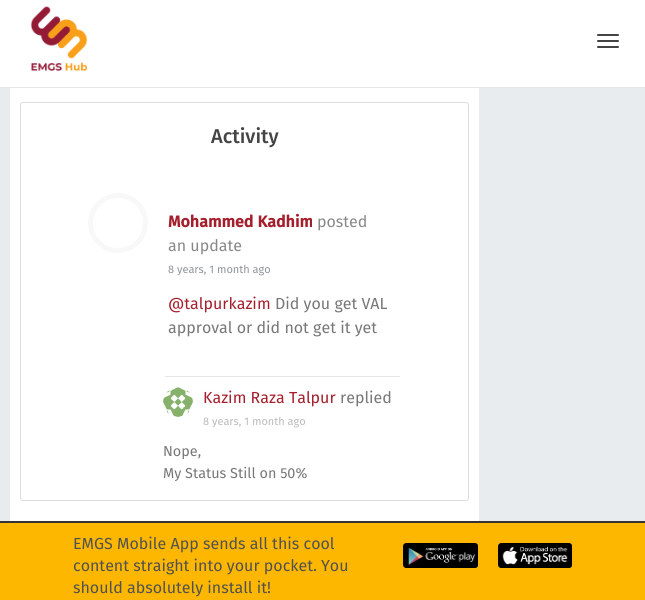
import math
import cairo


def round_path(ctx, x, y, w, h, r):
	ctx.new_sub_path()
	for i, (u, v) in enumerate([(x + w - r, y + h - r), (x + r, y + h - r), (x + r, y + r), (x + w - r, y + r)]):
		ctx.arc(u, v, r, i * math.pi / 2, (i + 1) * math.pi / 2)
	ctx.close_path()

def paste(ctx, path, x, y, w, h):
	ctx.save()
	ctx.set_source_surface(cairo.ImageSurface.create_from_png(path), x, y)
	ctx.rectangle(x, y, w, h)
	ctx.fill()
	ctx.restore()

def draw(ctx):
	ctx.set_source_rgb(0.914, 0.922, 0.933)
	ctx.paint()
	ctx.set_source_rgb(1, 1, 1)
	ctx.rectangle(0, 0, 645, 87)
	ctx.fill()
	ctx.set_source_rgb(0.898, 0.898, 0.898)
	ctx.rectangle(0, 87, 645, 1)
	ctx.fill()
	paste(ctx, 'media/1.png', 30, 6, 58, 65)
	ctx.set_source_rgb(0.267, 0.267, 0.267)
	round_path(ctx, 597, 34, 22, 2, 1)
	ctx.fill()
	round_path(ctx, 597, 40, 22, 2, 1)
	ctx.fill()
	round_path(ctx, 597, 46, 22, 2, 1)
	ctx.fill()
	ctx.set_source_rgb(1, 1, 1)
	ctx.rectangle(10, 88, 469, 433)
	ctx.fill()
	round_path(ctx, 20.5, 102.5, 448, 398, 2.5)
	ctx.set_source_rgb(0.867, 0.867, 0.867)
	ctx.set_line_width(1)
	ctx.stroke()
	ctx.select_font_face('Fira Sans Medium')
	ctx.set_font_size(20)
	ctx.set_source_rgb(0.267, 0.267, 0.267)
	ctx.move_to(211, 143)
	ctx.show_text('Activity')
	ctx.new_path()
	ctx.arc(118, 223, 27.5, 0, 2 * math.pi)
	ctx.set_source_rgb(0.969, 0.969, 0.969)
	ctx.set_line_width(5)
	ctx.stroke()
	ctx.select_font_face('Fira Sans', cairo.FONT_SLANT_NORMAL, cairo.FONT_WEIGHT_BOLD)
	ctx.set_font_size(16)
	ctx.set_source_rgb(0.647, 0.118, 0.169)
	ctx.move_to(168, 227)
	ctx.show_text('Mohammed Kadhim')
	ctx.select_font_face('Fira Sans')
	ctx.set_source_rgb(0.533, 0.533, 0.533)
	ctx.move_to(317, 227)
	ctx.show_text('posted')
	ctx.move_to(168, 251)
	ctx.show_text('an update')
	ctx.set_font_size(11)
	ctx.set_source_rgb(0.565, 0.58, 0.612)
	ctx.move_to(168, 273)
	ctx.show_text('8 years, 1 month ago')
	ctx.set_font_size(16)
	ctx.set_source_rgb(0.647, 0.118, 0.169)
	ctx.move_to(168, 309)
	ctx.show_text('@talpurkazim')
	ctx.set_source_rgb(0.467, 0.467, 0.467)
	ctx.move_to(275, 309)
	ctx.show_text('Did you get VAL')
	ctx.move_to(168, 333)
	ctx.show_text('approval or did not get it yet')
	ctx.set_source_rgb(0.898, 0.898, 0.898)
	ctx.rectangle(165, 376, 235, 1)
	ctx.fill()
	paste(ctx, 'media/2.png', 163, 387, 30, 30)
	ctx.set_source_rgb(0.647, 0.118, 0.169)
	ctx.move_to(203, 403)
	ctx.show_text('Kazim Raza Talpur')
	ctx.set_source_rgb(0.467, 0.467, 0.467)
	ctx.move_to(340, 403)
	ctx.show_text('replied')
	ctx.set_font_size(11)
	ctx.set_source_rgb(0.733, 0.733, 0.733)
	ctx.move_to(203, 425)
	ctx.show_text('8 years, 1 month ago')
	ctx.set_font_size(14.4)
	ctx.set_source_rgb(0.467, 0.467, 0.467)
	ctx.move_to(163, 456)
	ctx.show_text('Nope,')
	ctx.move_to(163, 478)
	ctx.show_text('My Status Still on 50%')
	ctx.set_source_rgb(0.992, 0.718, 0.004)
	ctx.rectangle(0, 523, 645, 77)
	ctx.fill()
	ctx.set_source_rgb(0.2, 0.2, 0.2)
	ctx.rectangle(0, 521, 645, 2)
	ctx.fill()
	ctx.set_font_size(16)
	ctx.set_source_rgb(0.318, 0.318, 0.318)
	for x, y, s in [
		(73, 549, 'EMGS Mobile App sends all this cool'),
		(73, 571, 'content straight into your pocket. You'),
		(73, 593, 'should absolutely install it!'),
	]:
		ctx.move_to(x, y)
		ctx.show_text(s)
	paste(ctx, 'media/3.png', 403, 543, 75, 25)
	paste(ctx, 'media/4.png', 498, 543, 74, 25)


surface = cairo.ImageSurface(cairo.FORMAT_RGB24, 645, 600)
ctx = cairo.Context(surface)
options = cairo.FontOptions()
options.set_hint_metrics(cairo.HINT_METRICS_OFF)
options.set_hint_style(cairo.HINT_STYLE_NONE)
ctx.set_font_options(options)
ctx.set_miter_limit(4)
draw(ctx)
surface.write_to_png('image.png')
